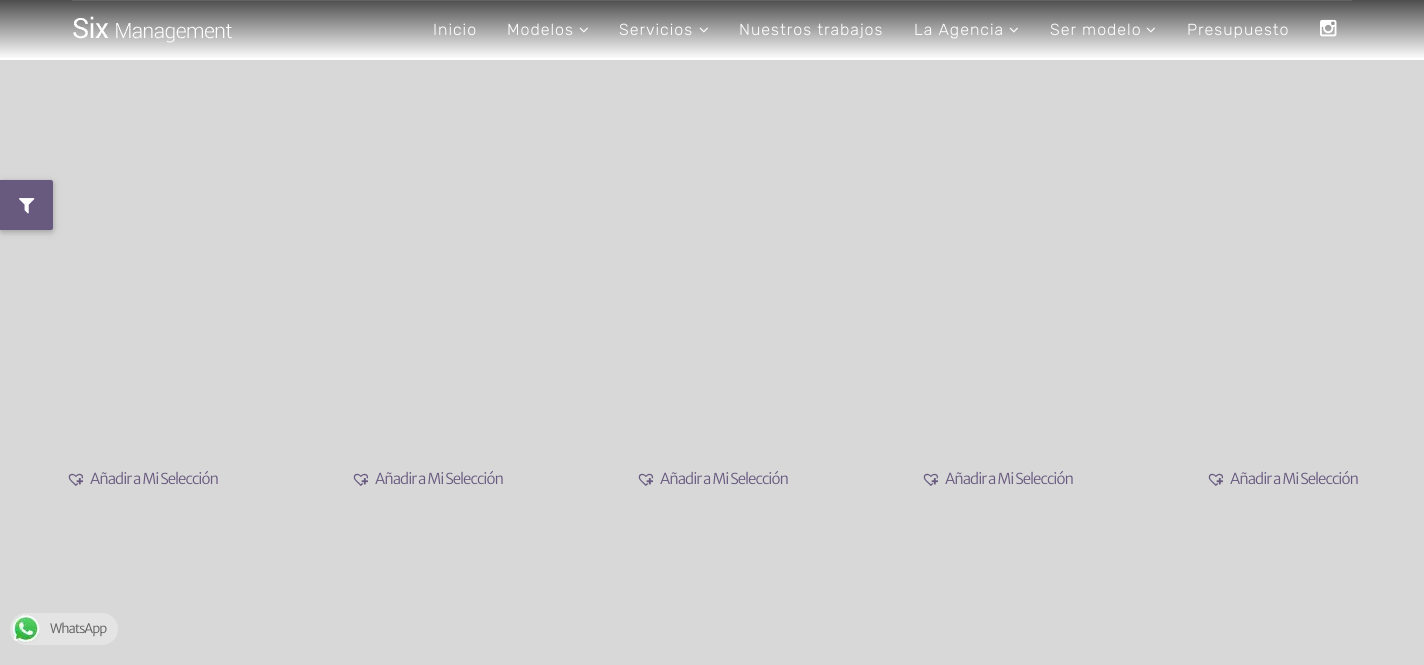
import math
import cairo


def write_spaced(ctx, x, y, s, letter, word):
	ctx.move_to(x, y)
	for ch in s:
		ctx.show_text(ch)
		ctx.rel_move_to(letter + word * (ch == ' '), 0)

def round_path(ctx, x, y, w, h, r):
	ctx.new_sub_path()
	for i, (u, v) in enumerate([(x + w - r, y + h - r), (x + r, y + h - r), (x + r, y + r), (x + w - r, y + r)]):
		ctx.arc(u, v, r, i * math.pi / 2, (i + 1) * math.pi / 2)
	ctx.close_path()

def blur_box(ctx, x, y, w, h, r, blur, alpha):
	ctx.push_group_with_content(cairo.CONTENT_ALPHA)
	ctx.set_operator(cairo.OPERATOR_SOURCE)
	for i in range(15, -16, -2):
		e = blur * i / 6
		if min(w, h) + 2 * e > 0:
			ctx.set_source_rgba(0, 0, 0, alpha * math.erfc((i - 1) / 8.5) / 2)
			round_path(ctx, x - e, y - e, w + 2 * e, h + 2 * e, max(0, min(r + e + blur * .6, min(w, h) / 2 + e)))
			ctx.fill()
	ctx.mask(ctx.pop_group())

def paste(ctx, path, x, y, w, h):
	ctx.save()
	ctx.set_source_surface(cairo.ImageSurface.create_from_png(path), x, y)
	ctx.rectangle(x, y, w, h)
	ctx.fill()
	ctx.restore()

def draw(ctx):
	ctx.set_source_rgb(1, 1, 1)
	ctx.paint()
	gradient = cairo.LinearGradient(712, 0, 712, 59)
	gradient.add_color_stop_rgba(0, 0.302, 0.302, 0.302, 1)
	gradient.add_color_stop_rgba(1, 1, 1, 1, 1)
	ctx.set_source(gradient)
	ctx.rectangle(0, 0, 1424, 58)
	ctx.fill()
	ctx.set_source_rgb(0.38, 0.38, 0.38)
	ctx.rectangle(72, 0, 1280, 1)
	ctx.fill()
	paste(ctx, 'media/1.png', 73, 16, 159, 27)
	ctx.select_font_face('Rubik Light')
	ctx.set_font_size(16)
	ctx.set_source_rgb(1, 1, 1)
	write_spaced(ctx, 433, 35, 'Inicio', 1, 0)
	write_spaced(ctx, 507, 35, 'Modelos', 1, 0)
	paste(ctx, 'media/2.png', 579, 27, 9, 6)
	write_spaced(ctx, 619, 35, 'Servicios', 1, 0)
	paste(ctx, 'media/2.png', 699, 27, 9, 6)
	write_spaced(ctx, 739, 35, 'Nuestros trabajos', 1, 0)
	write_spaced(ctx, 914, 35, 'La Agencia', 1, 0)
	paste(ctx, 'media/2.png', 1009, 27, 9, 6)
	write_spaced(ctx, 1050, 35, 'Ser modelo', 1, 0)
	paste(ctx, 'media/2.png', 1146, 27, 9, 6)
	write_spaced(ctx, 1187, 35, 'Presupuesto', 1, 0)
	paste(ctx, 'media/3.png', 1320, 19, 17, 18)
	ctx.set_source_rgb(0.847, 0.847, 0.847)
	ctx.rectangle(0, 60, 1424, 437)
	ctx.fill()
	ctx.set_source_rgb(0, 0, 0)
	blur_box(ctx, 0, 182, 53, 50, 2, 5, 0.12)
	blur_box(ctx, 0, 182, 53, 50, 2, 2.5, 0.16)
	ctx.set_source_rgb(0.408, 0.349, 0.498)
	ctx.new_path()
	ctx.move_to(0, 180)
	ctx.line_to(51, 180)
	ctx.curve_to(52, 180, 53, 181, 53, 182)
	ctx.line_to(53, 228)
	ctx.curve_to(53, 229, 52, 230, 51, 230)
	ctx.line_to(0, 230)
	ctx.close_path()
	ctx.fill()
	paste(ctx, 'media/4.png', 19, 198, 16, 16)
	paste(ctx, 'media/5.png', 68, 473, 15, 13)
	ctx.select_font_face('Merriweather Sans Light')
	ctx.set_font_size(15)
	write_spaced(ctx, 90, 484, 'Añadir a Mi Selección', -1, 0)
	paste(ctx, 'media/5.png', 353, 473, 15, 13)
	write_spaced(ctx, 375, 484, 'Añadir a Mi Selección', -1, 0)
	paste(ctx, 'media/5.png', 638, 473, 15, 13)
	write_spaced(ctx, 660, 484, 'Añadir a Mi Selección', -1, 0)
	paste(ctx, 'media/5.png', 923, 473, 15, 13)
	write_spaced(ctx, 945, 484, 'Añadir a Mi Selección', -1, 0)
	paste(ctx, 'media/5.png', 1208, 473, 15, 13)
	write_spaced(ctx, 1230, 484, 'Añadir a Mi Selección', -1, 0)
	ctx.set_source_rgb(0.847, 0.847, 0.847)
	ctx.rectangle(0, 497, 1424, 168)
	ctx.fill()
	ctx.set_source_rgb(0.894, 0.894, 0.894)
	round_path(ctx, 10, 613, 108, 32, 16)
	ctx.fill()
	paste(ctx, 'media/6.png', 12, 615, 28, 28)
	ctx.set_font_size(13)
	ctx.set_source_rgb(0.357, 0.357, 0.357)
	write_spaced(ctx, 50, 633, 'WhatsApp', -1, 0)


surface = cairo.ImageSurface(cairo.FORMAT_RGB24, 1424, 665)
ctx = cairo.Context(surface)
options = cairo.FontOptions()
options.set_hint_metrics(cairo.HINT_METRICS_OFF)
options.set_hint_style(cairo.HINT_STYLE_NONE)
ctx.set_font_options(options)
ctx.set_miter_limit(4)
draw(ctx)
surface.write_to_png('image.png')
